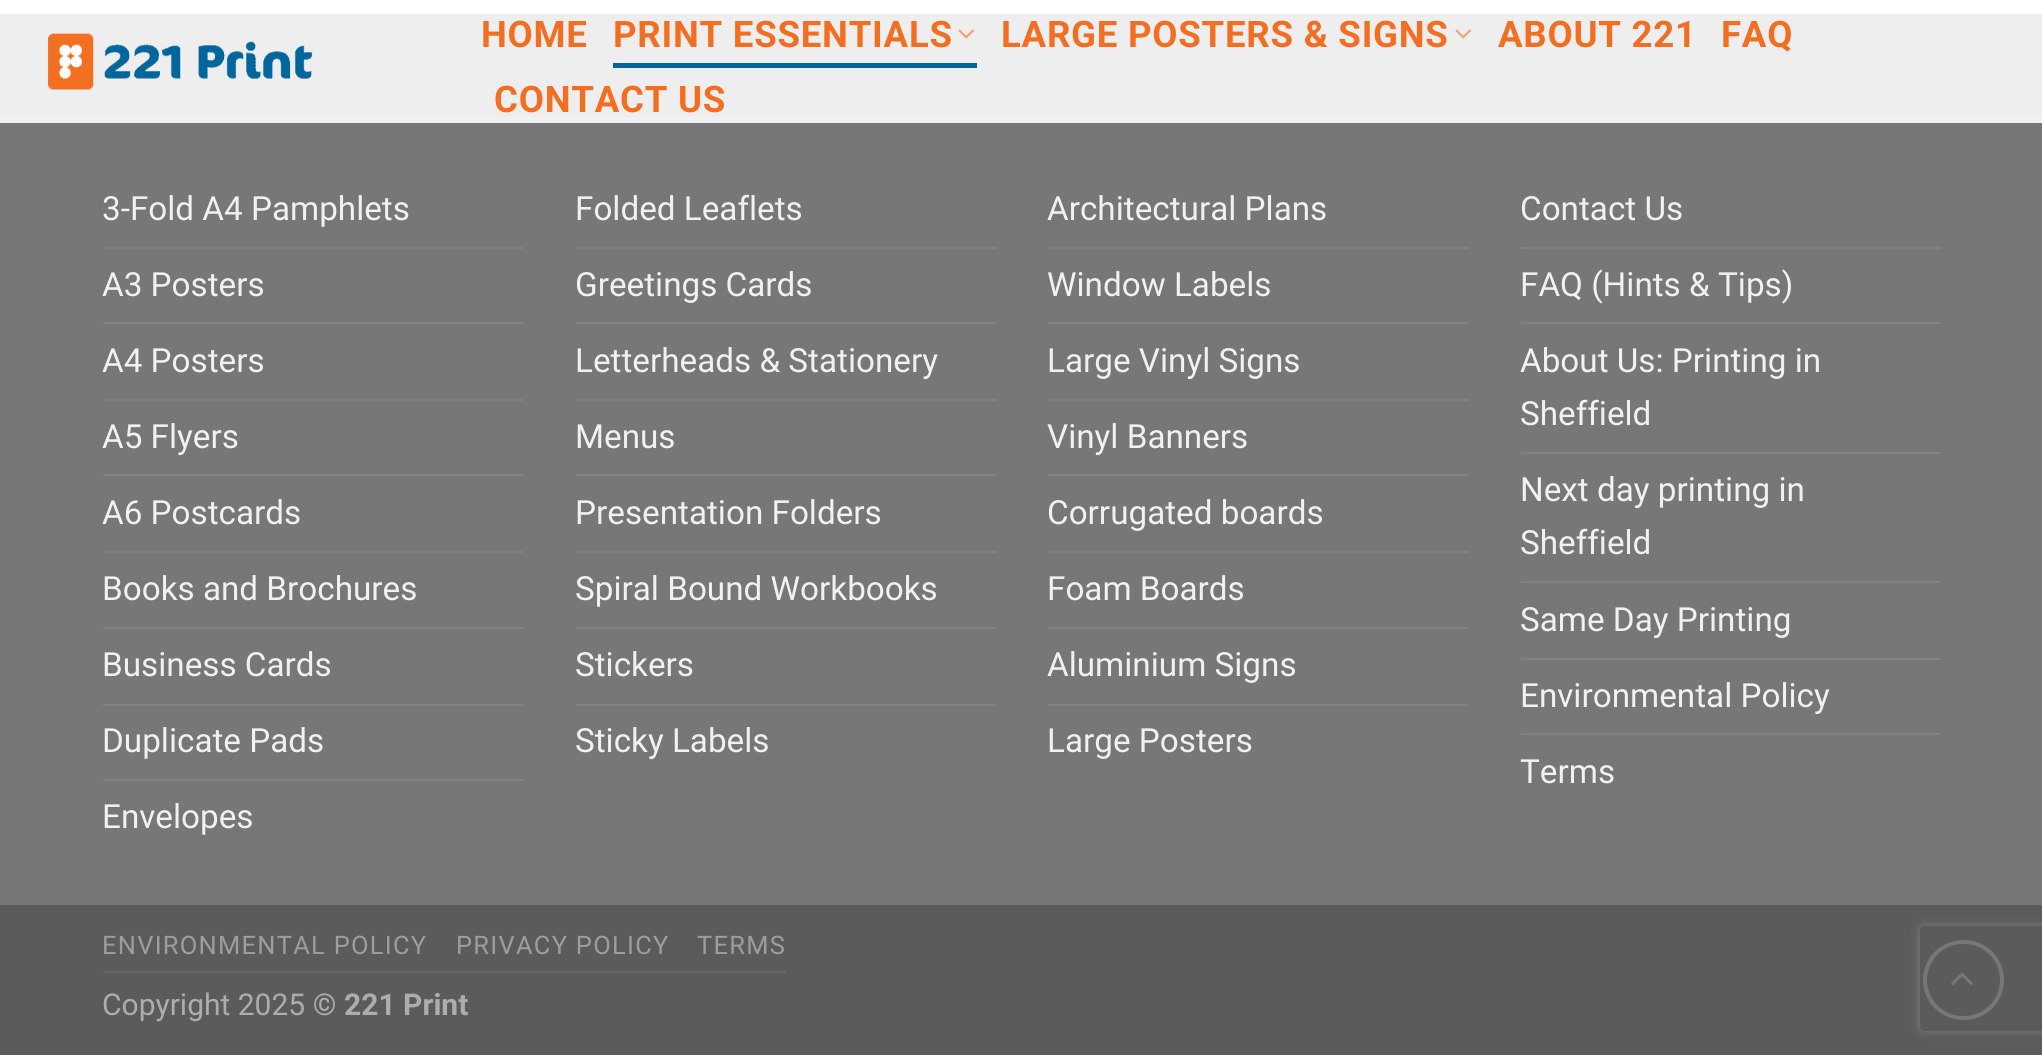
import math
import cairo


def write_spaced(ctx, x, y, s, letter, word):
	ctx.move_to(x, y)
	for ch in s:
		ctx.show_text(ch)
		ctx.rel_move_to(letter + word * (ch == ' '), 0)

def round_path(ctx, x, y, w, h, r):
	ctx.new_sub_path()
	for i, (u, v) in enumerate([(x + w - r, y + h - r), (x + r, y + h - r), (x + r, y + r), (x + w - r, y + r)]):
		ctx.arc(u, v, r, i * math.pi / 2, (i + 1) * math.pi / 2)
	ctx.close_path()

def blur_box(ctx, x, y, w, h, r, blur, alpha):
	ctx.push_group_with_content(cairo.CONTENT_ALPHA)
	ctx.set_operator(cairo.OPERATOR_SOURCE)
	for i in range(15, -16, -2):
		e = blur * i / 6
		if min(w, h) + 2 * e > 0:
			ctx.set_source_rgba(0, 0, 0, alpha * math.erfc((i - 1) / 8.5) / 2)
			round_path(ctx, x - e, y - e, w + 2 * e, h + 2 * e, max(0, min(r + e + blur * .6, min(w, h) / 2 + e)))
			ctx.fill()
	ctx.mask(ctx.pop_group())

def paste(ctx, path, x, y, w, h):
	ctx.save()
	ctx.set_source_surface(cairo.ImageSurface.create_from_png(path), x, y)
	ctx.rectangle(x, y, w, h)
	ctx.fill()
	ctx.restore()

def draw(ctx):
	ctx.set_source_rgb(1, 1, 1)
	ctx.paint()
	ctx.set_source_rgb(0.31, 0.31, 0.31)
	ctx.rectangle(0, 16, 2042, 101)
	ctx.fill()
	ctx.set_source_rgb(0.294, 0.294, 0.294)
	ctx.rectangle(0, 14, 2042, 2)
	ctx.fill()
	ctx.set_source_rgb(0.467, 0.467, 0.467)
	ctx.rectangle(0, 119, 2042, 786)
	ctx.fill()
	ctx.set_source_rgb(0.443, 0.443, 0.443)
	ctx.rectangle(0, 117, 2042, 2)
	ctx.fill()
	ctx.set_source_rgba(1, 1, 1, 0.9)
	ctx.rectangle(0, 14, 2042, 109)
	ctx.fill()
	paste(ctx, 'media/1.png', 48, 33, 265, 57)
	ctx.select_font_face('Roboto', cairo.FONT_SLANT_NORMAL, cairo.FONT_WEIGHT_BOLD)
	ctx.set_font_size(36.6)
	ctx.set_source_rgb(0.953, 0.431, 0.129)
	write_spaced(ctx, 481, 47, 'HOME', 0.75, 0)
	write_spaced(ctx, 613, 47, 'PRINT ESSENTIALS', 0.75, 0)
	paste(ctx, 'media/2.png', 958, 29, 16, 10)
	ctx.set_source_rgb(0, 0.4, 0.608)
	ctx.rectangle(613, 63, 364, 5)
	ctx.fill()
	ctx.set_source_rgb(0.953, 0.431, 0.129)
	write_spaced(ctx, 1001, 47, 'LARGE POSTERS & SIGNS', 0.75, 0)
	paste(ctx, 'media/2.png', 1455, 29, 16, 10)
	for x, y, s in [
		(1498, 47, 'ABOUT 221'),
		(1721, 47, 'FAQ'),
		(494, 112, 'CONTACT US'),
	]:
		write_spaced(ctx, x, y, s, 0.75, 0)
	ctx.select_font_face('Roboto')
	ctx.set_font_size(33.25)
	ctx.set_source_rgb(0.945, 0.945, 0.945)
	ctx.move_to(102, 220)
	ctx.show_text('3-Fold A4 Pamphlets')
	ctx.set_source_rgb(0.51, 0.51, 0.51)
	ctx.rectangle(103, 247, 420, 2)
	ctx.fill()
	ctx.set_source_rgb(0.945, 0.945, 0.945)
	ctx.move_to(102, 296)
	ctx.show_text('A3 Posters')
	ctx.set_source_rgb(0.51, 0.51, 0.51)
	ctx.rectangle(103, 322, 420, 2)
	ctx.fill()
	ctx.set_source_rgb(0.945, 0.945, 0.945)
	ctx.move_to(102, 372)
	ctx.show_text('A4 Posters')
	ctx.set_source_rgb(0.51, 0.51, 0.51)
	ctx.rectangle(103, 399, 420, 2)
	ctx.fill()
	ctx.set_source_rgb(0.945, 0.945, 0.945)
	ctx.move_to(102, 448)
	ctx.show_text('A5 Flyers')
	ctx.set_source_rgb(0.51, 0.51, 0.51)
	ctx.rectangle(103, 474, 420, 2)
	ctx.fill()
	ctx.set_source_rgb(0.945, 0.945, 0.945)
	ctx.move_to(102, 524)
	ctx.show_text('A6 Postcards')
	ctx.set_source_rgb(0.51, 0.51, 0.51)
	ctx.rectangle(103, 551, 420, 2)
	ctx.fill()
	ctx.set_source_rgb(0.945, 0.945, 0.945)
	ctx.move_to(102, 600)
	ctx.show_text('Books and Brochures')
	ctx.set_source_rgb(0.51, 0.51, 0.51)
	ctx.rectangle(103, 627, 420, 2)
	ctx.fill()
	ctx.set_source_rgb(0.945, 0.945, 0.945)
	ctx.move_to(102, 676)
	ctx.show_text('Business Cards')
	ctx.set_source_rgb(0.51, 0.51, 0.51)
	ctx.rectangle(103, 704, 420, 2)
	ctx.fill()
	ctx.set_source_rgb(0.945, 0.945, 0.945)
	ctx.move_to(102, 752)
	ctx.show_text('Duplicate Pads')
	ctx.set_source_rgb(0.51, 0.51, 0.51)
	ctx.rectangle(103, 779, 420, 2)
	ctx.fill()
	ctx.set_source_rgb(0.945, 0.945, 0.945)
	ctx.move_to(102, 828)
	ctx.show_text('Envelopes')
	ctx.move_to(575, 220)
	ctx.show_text('Folded Leaflets')
	ctx.set_source_rgb(0.51, 0.51, 0.51)
	ctx.rectangle(576, 247, 420, 2)
	ctx.fill()
	ctx.set_source_rgb(0.945, 0.945, 0.945)
	ctx.move_to(575, 296)
	ctx.show_text('Greetings Cards')
	ctx.set_source_rgb(0.51, 0.51, 0.51)
	ctx.rectangle(576, 322, 420, 2)
	ctx.fill()
	ctx.set_source_rgb(0.945, 0.945, 0.945)
	ctx.move_to(575, 372)
	ctx.show_text('Letterheads & Stationery')
	ctx.set_source_rgb(0.51, 0.51, 0.51)
	ctx.rectangle(576, 399, 420, 2)
	ctx.fill()
	ctx.set_source_rgb(0.945, 0.945, 0.945)
	ctx.move_to(575, 448)
	ctx.show_text('Menus')
	ctx.set_source_rgb(0.51, 0.51, 0.51)
	ctx.rectangle(576, 474, 420, 2)
	ctx.fill()
	ctx.set_source_rgb(0.945, 0.945, 0.945)
	ctx.move_to(575, 524)
	ctx.show_text('Presentation Folders')
	ctx.set_source_rgb(0.51, 0.51, 0.51)
	ctx.rectangle(576, 551, 420, 2)
	ctx.fill()
	ctx.set_source_rgb(0.945, 0.945, 0.945)
	ctx.move_to(575, 600)
	ctx.show_text('Spiral Bound Workbooks')
	ctx.set_source_rgb(0.51, 0.51, 0.51)
	ctx.rectangle(576, 627, 420, 2)
	ctx.fill()
	ctx.set_source_rgb(0.945, 0.945, 0.945)
	ctx.move_to(575, 676)
	ctx.show_text('Stickers')
	ctx.set_source_rgb(0.51, 0.51, 0.51)
	ctx.rectangle(576, 704, 420, 2)
	ctx.fill()
	ctx.set_source_rgb(0.945, 0.945, 0.945)
	ctx.move_to(575, 752)
	ctx.show_text('Sticky Labels')
	ctx.move_to(1047, 220)
	ctx.show_text('Architectural Plans')
	ctx.set_source_rgb(0.51, 0.51, 0.51)
	ctx.rectangle(1048, 247, 420, 2)
	ctx.fill()
	ctx.set_source_rgb(0.945, 0.945, 0.945)
	ctx.move_to(1047, 296)
	ctx.show_text('Window Labels')
	ctx.set_source_rgb(0.51, 0.51, 0.51)
	ctx.rectangle(1048, 322, 420, 2)
	ctx.fill()
	ctx.set_source_rgb(0.945, 0.945, 0.945)
	ctx.move_to(1047, 372)
	ctx.show_text('Large Vinyl Signs')
	ctx.set_source_rgb(0.51, 0.51, 0.51)
	ctx.rectangle(1048, 399, 420, 2)
	ctx.fill()
	ctx.set_source_rgb(0.945, 0.945, 0.945)
	ctx.move_to(1047, 448)
	ctx.show_text('Vinyl Banners')
	ctx.set_source_rgb(0.51, 0.51, 0.51)
	ctx.rectangle(1048, 474, 420, 2)
	ctx.fill()
	ctx.set_source_rgb(0.945, 0.945, 0.945)
	ctx.move_to(1047, 524)
	ctx.show_text('Corrugated boards')
	ctx.set_source_rgb(0.51, 0.51, 0.51)
	ctx.rectangle(1048, 551, 420, 2)
	ctx.fill()
	ctx.set_source_rgb(0.945, 0.945, 0.945)
	ctx.move_to(1047, 600)
	ctx.show_text('Foam Boards')
	ctx.set_source_rgb(0.51, 0.51, 0.51)
	ctx.rectangle(1048, 627, 420, 2)
	ctx.fill()
	ctx.set_source_rgb(0.945, 0.945, 0.945)
	ctx.move_to(1047, 676)
	ctx.show_text('Aluminium Signs')
	ctx.set_source_rgb(0.51, 0.51, 0.51)
	ctx.rectangle(1048, 704, 420, 2)
	ctx.fill()
	ctx.set_source_rgb(0.945, 0.945, 0.945)
	ctx.move_to(1047, 752)
	ctx.show_text('Large Posters')
	ctx.move_to(1520, 220)
	ctx.show_text('Contact Us')
	ctx.set_source_rgb(0.51, 0.51, 0.51)
	ctx.rectangle(1521, 247, 420, 2)
	ctx.fill()
	ctx.set_source_rgb(0.945, 0.945, 0.945)
	ctx.move_to(1520, 296)
	ctx.show_text('FAQ (Hints & Tips)')
	ctx.set_source_rgb(0.51, 0.51, 0.51)
	ctx.rectangle(1521, 322, 420, 2)
	ctx.fill()
	ctx.set_source_rgb(0.945, 0.945, 0.945)
	ctx.move_to(1520, 372)
	ctx.show_text('About Us: Printing in')
	ctx.move_to(1520, 425)
	ctx.show_text('Sheffield')
	ctx.set_source_rgb(0.51, 0.51, 0.51)
	ctx.rectangle(1521, 452, 420, 2)
	ctx.fill()
	ctx.set_source_rgb(0.945, 0.945, 0.945)
	ctx.move_to(1520, 501)
	ctx.show_text('Next day printing in')
	ctx.move_to(1520, 554)
	ctx.show_text('Sheffield')
	ctx.set_source_rgb(0.51, 0.51, 0.51)
	ctx.rectangle(1521, 581, 420, 2)
	ctx.fill()
	ctx.set_source_rgb(0.945, 0.945, 0.945)
	ctx.move_to(1520, 631)
	ctx.show_text('Same Day Printing')
	ctx.set_source_rgb(0.51, 0.51, 0.51)
	ctx.rectangle(1521, 658, 420, 2)
	ctx.fill()
	ctx.set_source_rgb(0.945, 0.945, 0.945)
	ctx.move_to(1520, 707)
	ctx.show_text('Environmental Policy')
	ctx.set_source_rgb(0.51, 0.51, 0.51)
	ctx.rectangle(1521, 733, 420, 2)
	ctx.fill()
	ctx.set_source_rgb(0.945, 0.945, 0.945)
	ctx.move_to(1520, 783)
	ctx.show_text('Terms')
	ctx.set_source_rgb(0.357, 0.357, 0.357)
	ctx.rectangle(0, 905, 2042, 150)
	ctx.fill()
	ctx.set_source_rgb(0.396, 0.396, 0.396)
	ctx.rectangle(103, 971, 683, 2)
	ctx.fill()
	ctx.set_font_size(25.5)
	ctx.set_source_rgb(0.616, 0.616, 0.616)
	for x, y, s in [
		(102, 954, 'ENVIRONMENTAL POLICY'),
		(456, 954, 'PRIVACY POLICY'),
		(697, 954, 'TERMS'),
	]:
		write_spaced(ctx, x, y, s, 1.25, 0)
	ctx.set_font_size(30)
	ctx.set_source_rgb(0.678, 0.678, 0.678)
	ctx.move_to(102, 1015)
	ctx.show_text('Copyright 2025 ©')
	ctx.select_font_face('Roboto', cairo.FONT_SLANT_NORMAL, cairo.FONT_WEIGHT_BOLD)
	ctx.move_to(344, 1015)
	ctx.show_text('221 Print')
	ctx.save()
	ctx.set_fill_rule(cairo.FILL_RULE_EVEN_ODD)
	ctx.new_path()
	ctx.move_to(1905, 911)
	ctx.line_to(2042, 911)
	ctx.line_to(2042, 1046)
	ctx.line_to(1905, 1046)
	ctx.close_path()
	ctx.move_to(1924, 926)
	ctx.line_to(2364, 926)
	ctx.curve_to(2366, 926, 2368, 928, 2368, 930)
	ctx.line_to(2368, 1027)
	ctx.curve_to(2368, 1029, 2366, 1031, 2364, 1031)
	ctx.line_to(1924, 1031)
	ctx.curve_to(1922, 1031, 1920, 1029, 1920, 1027)
	ctx.line_to(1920, 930)
	ctx.curve_to(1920, 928, 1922, 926, 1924, 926)
	ctx.close_path()
	ctx.clip()
	ctx.set_source_rgb(0.502, 0.502, 0.502)
	blur_box(ctx, 1920, 926, 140, 105, 4, 4.5, 1)
	ctx.restore()
	round_path(ctx, 1925, 942, 77, 76, 38)
	ctx.set_source_rgb(0.467, 0.467, 0.467)
	ctx.set_line_width(4)
	ctx.stroke()
	paste(ctx, 'media/3.png', 1951, 972, 22, 13)


surface = cairo.ImageSurface(cairo.FORMAT_RGB24, 2042, 1055)
ctx = cairo.Context(surface)
options = cairo.FontOptions()
options.set_hint_metrics(cairo.HINT_METRICS_OFF)
options.set_hint_style(cairo.HINT_STYLE_NONE)
ctx.set_font_options(options)
ctx.set_miter_limit(4)
draw(ctx)
surface.write_to_png('image.png')
